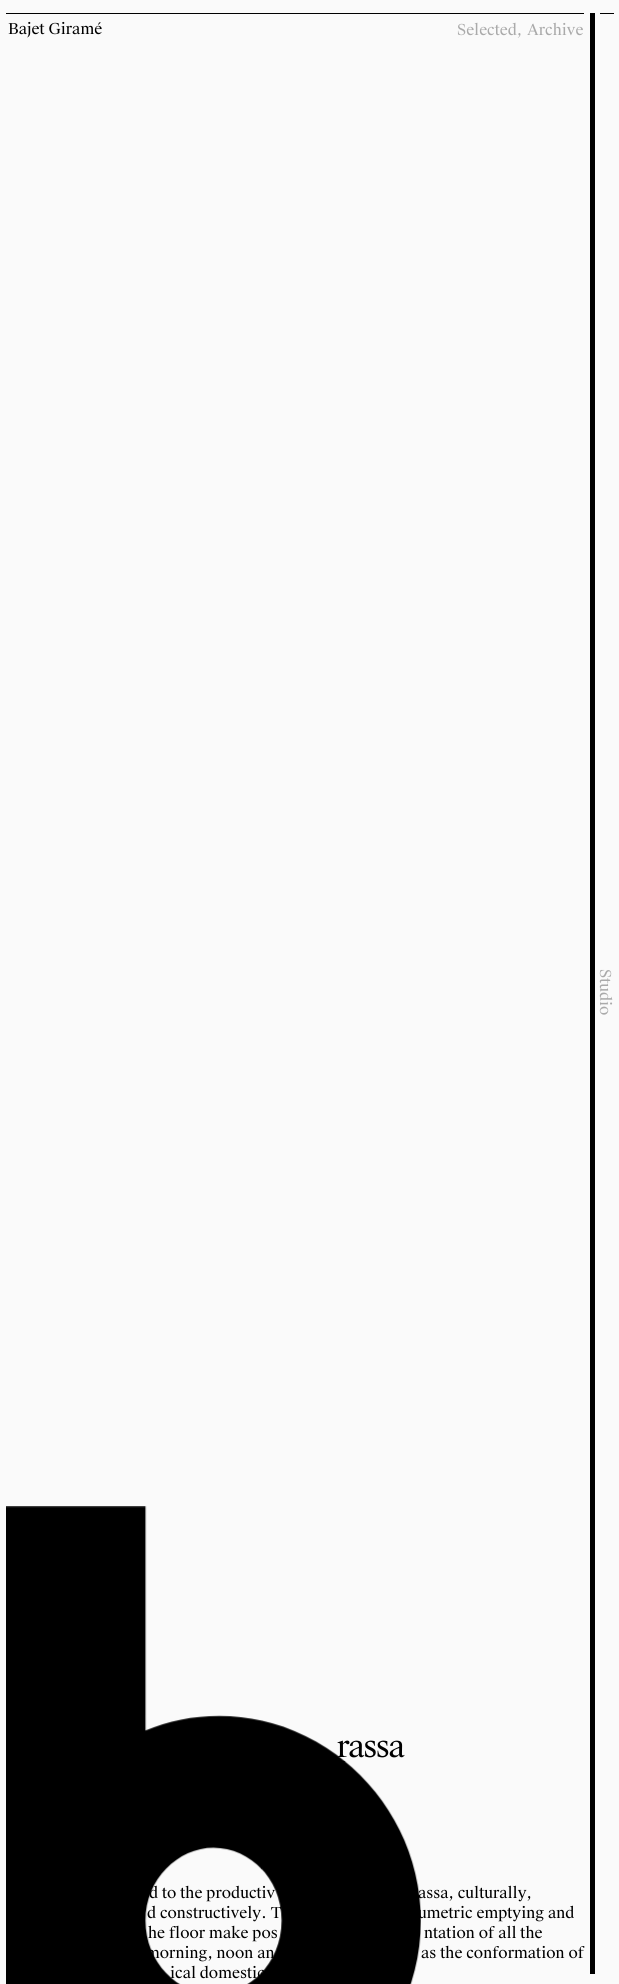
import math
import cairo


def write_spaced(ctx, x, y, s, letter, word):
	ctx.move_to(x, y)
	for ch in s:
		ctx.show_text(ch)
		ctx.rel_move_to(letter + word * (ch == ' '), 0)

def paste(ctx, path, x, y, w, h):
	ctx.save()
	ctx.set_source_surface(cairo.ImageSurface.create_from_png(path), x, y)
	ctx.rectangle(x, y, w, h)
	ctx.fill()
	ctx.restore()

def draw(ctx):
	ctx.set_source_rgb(0.98, 0.98, 0.98)
	ctx.paint()
	ctx.set_source_rgb(0, 0, 0)
	ctx.rectangle(600, 13, 14, 1)
	ctx.fill()
	ctx.rectangle(6, 13, 578, 1)
	ctx.fill()
	ctx.select_font_face('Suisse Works')
	ctx.set_font_size(15)
	ctx.move_to(8, 34)
	ctx.show_text('Bajet Giramé')
	ctx.set_source_rgb(0.667, 0.667, 0.667)
	ctx.move_to(457, 35)
	ctx.show_text('Selected,')
	ctx.move_to(527, 35)
	ctx.show_text('Archive')
	ctx.set_source_rgb(0, 0, 0)
	ctx.rectangle(590, 13, 5, 1961)
	ctx.fill()
	ctx.set_source_rgb(0.667, 0.667, 0.667)
	ctx.save()
	ctx.translate(600, 969)
	ctx.rotate(90 * math.pi / 180)
	ctx.move_to(0, 0)
	ctx.show_text('Studio')
	ctx.restore()
	ctx.set_font_size(30)
	ctx.set_source_rgb(0, 0, 0)
	write_spaced(ctx, 337, 1757, 'rassa', -1.5, 0)
	ctx.set_font_size(15)
	for x, y, s in [
		(149, 1898, 'd to the productiv'),
		(418, 1898, 'assa, culturally,'),
		(147, 1918, 'd constructively. T'),
		(418, 1918, 'umetric emptying and'),
		(148, 1938, 'he floor make pos'),
		(146, 1958, 'morning, noon an'),
		(170, 1978, 'ical domestic'),
	]:
		ctx.move_to(x, y)
		ctx.show_text(s)
	paste(ctx, 'media/1.png', 6, 1506, 415, 478)
	ctx.move_to(424, 1938)
	ctx.show_text('ntation of all the')
	ctx.move_to(421, 1958)
	ctx.show_text('as the conformation of')


surface = cairo.ImageSurface(cairo.FORMAT_RGB24, 619, 1984)
ctx = cairo.Context(surface)
options = cairo.FontOptions()
options.set_hint_metrics(cairo.HINT_METRICS_OFF)
options.set_hint_style(cairo.HINT_STYLE_NONE)
ctx.set_font_options(options)
ctx.set_miter_limit(4)
draw(ctx)
surface.write_to_png('image.png')
